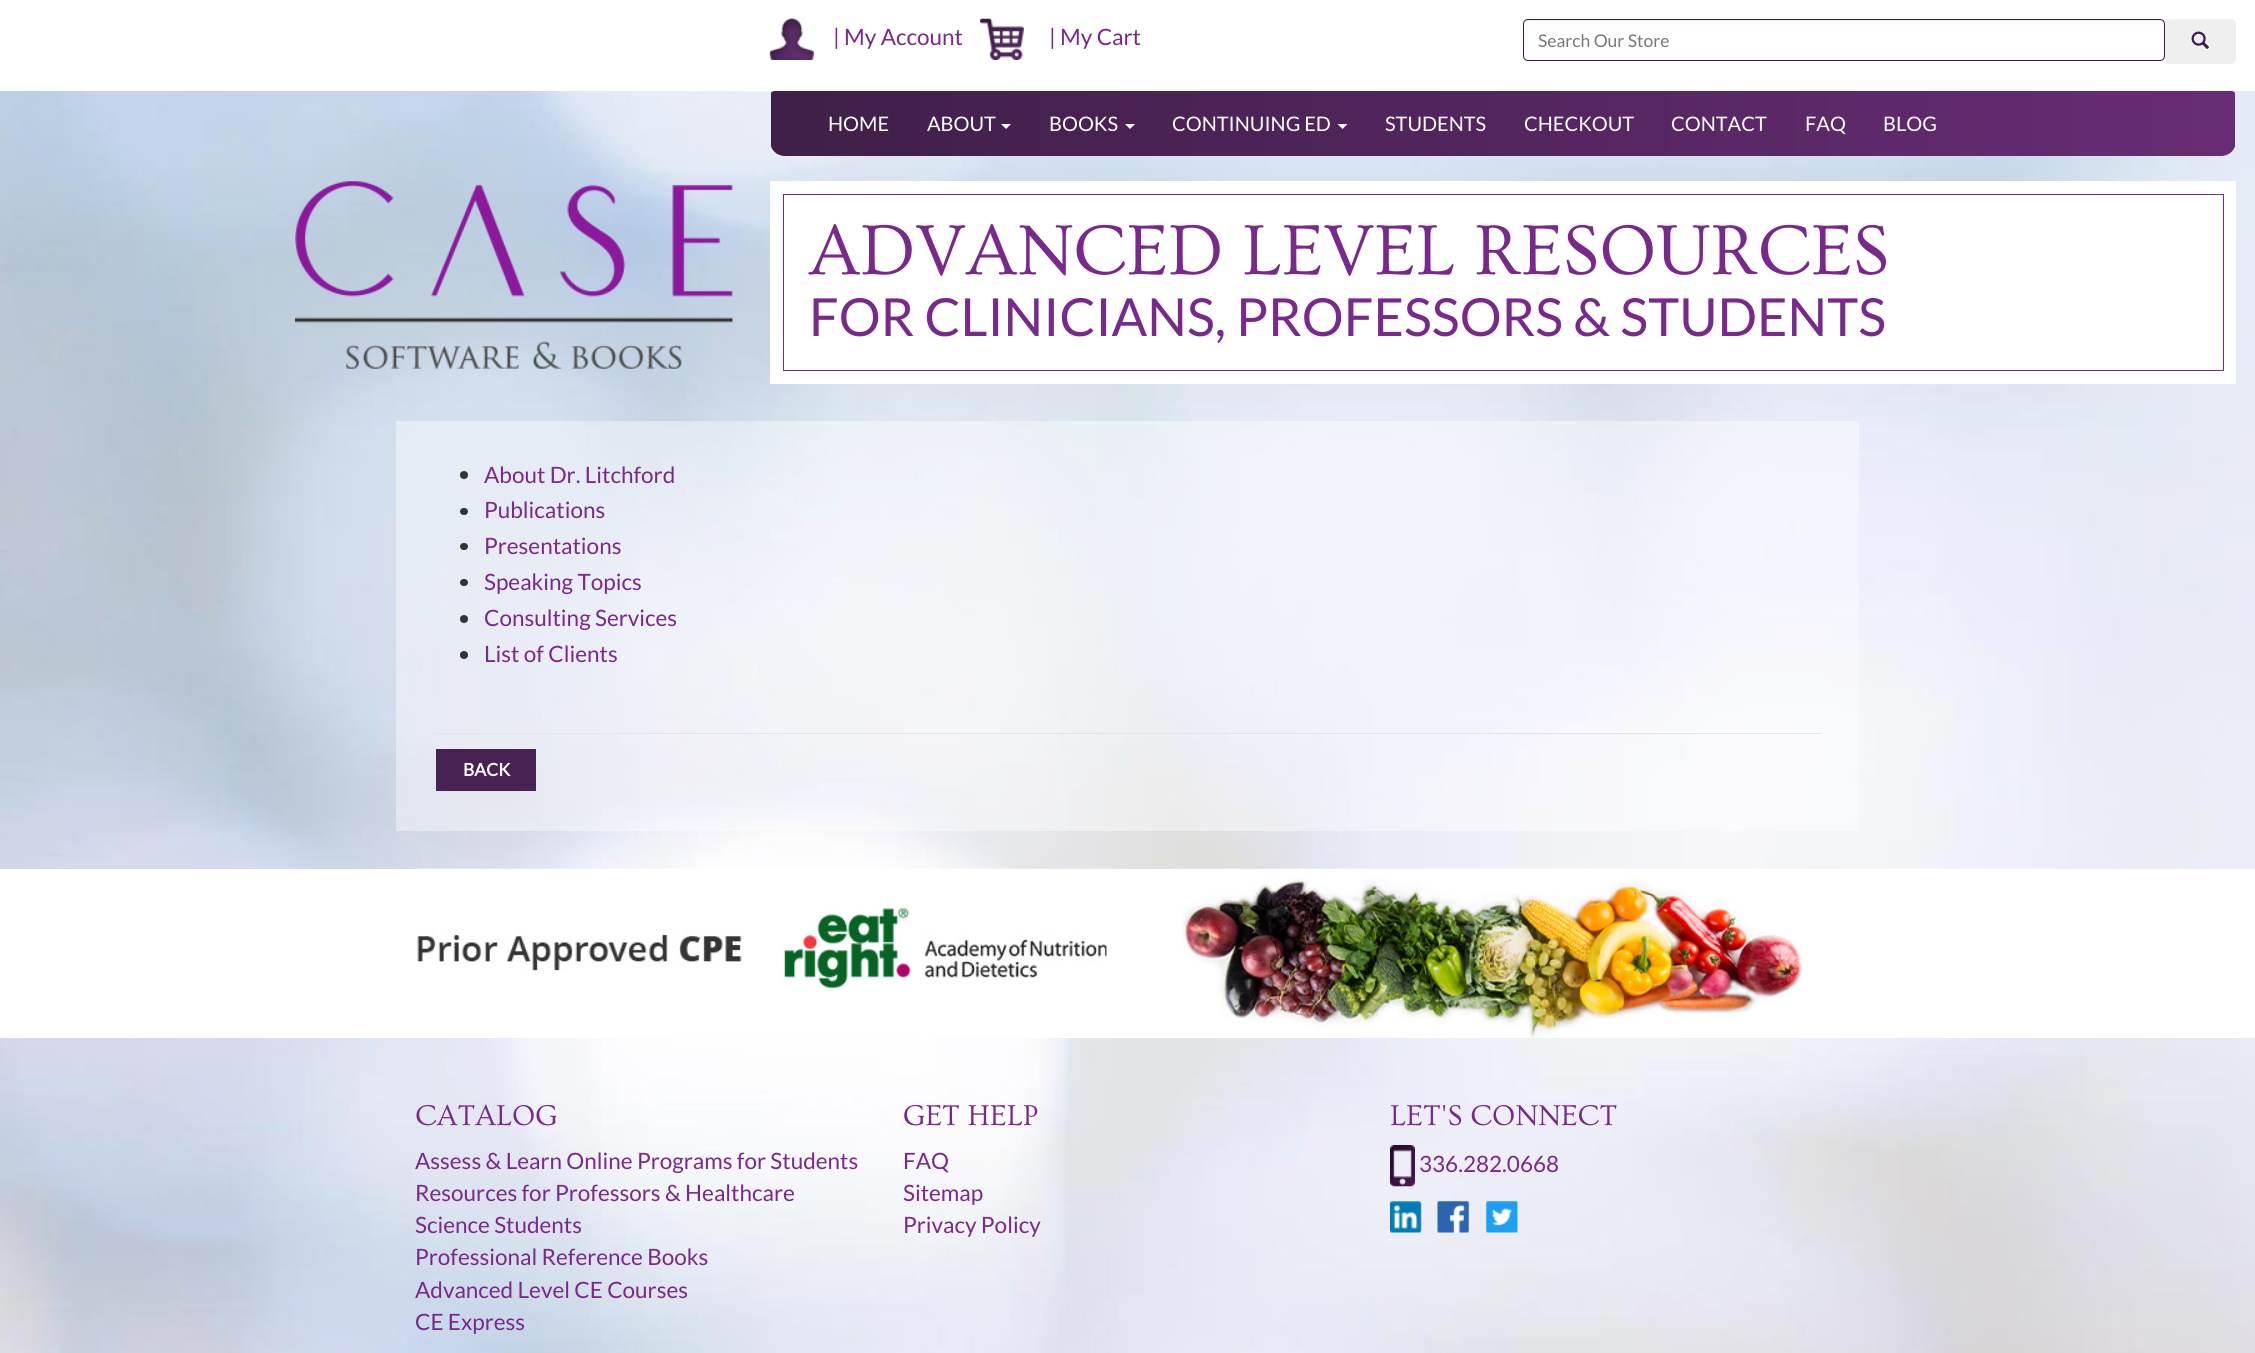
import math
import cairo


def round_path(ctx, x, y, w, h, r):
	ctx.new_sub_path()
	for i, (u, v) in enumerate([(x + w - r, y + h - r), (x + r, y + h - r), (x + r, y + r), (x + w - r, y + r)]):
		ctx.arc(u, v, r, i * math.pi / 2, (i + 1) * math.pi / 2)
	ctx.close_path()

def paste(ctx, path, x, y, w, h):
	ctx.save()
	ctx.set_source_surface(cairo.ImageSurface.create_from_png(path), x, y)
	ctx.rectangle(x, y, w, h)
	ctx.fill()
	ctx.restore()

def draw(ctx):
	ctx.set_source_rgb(1, 1, 1)
	ctx.paint()
	paste(ctx, 'media/1.png', 0, 91, 2255, 1262)
	paste(ctx, 'media/2.png', 770, 18, 44, 42)
	ctx.select_font_face('Lato')
	ctx.set_font_size(22.5)
	ctx.set_source_rgb(0.475, 0.157, 0.549)
	ctx.move_to(833, 45)
	ctx.show_text('| My Account')
	paste(ctx, 'media/3.png', 980, 18, 44, 42)
	ctx.move_to(1049, 45)
	ctx.show_text('| My Cart')
	ctx.set_source_rgb(0.925, 0.925, 0.925)
	ctx.new_path()
	ctx.move_to(1528, 21)
	ctx.line_to(2160, 21)
	ctx.curve_to(2162, 21, 2164, 23, 2164, 25)
	ctx.curve_to(2164, 22, 2163, 20, 2160, 20)
	ctx.line_to(1528, 20)
	ctx.curve_to(1525, 20, 1524, 22, 1524, 25)
	ctx.curve_to(1524, 23, 1525, 21, 1528, 21)
	ctx.close_path()
	ctx.fill()
	round_path(ctx, 1523.5, 19.5, 641, 41, 4.5)
	ctx.set_source_rgb(0.263, 0.09, 0.306)
	ctx.set_line_width(1)
	ctx.stroke()
	ctx.set_font_size(17.5)
	ctx.set_source_rgb(0.467, 0.467, 0.467)
	ctx.move_to(1538, 47)
	ctx.show_text('Search Our Store')
	ctx.set_source_rgb(0.937, 0.937, 0.937)
	round_path(ctx, 2165, 19, 71, 45, 5)
	ctx.fill()
	paste(ctx, 'media/4.png', 2191, 31, 18, 18)
	ctx.save()
	ctx.new_path()
	ctx.move_to(775, 91)
	ctx.line_to(2231, 91)
	ctx.curve_to(2234, 91, 2236, 93, 2236, 96)
	ctx.line_to(2236, 141)
	ctx.curve_to(2236, 149.5, 2229.5, 156, 2221, 156)
	ctx.line_to(785, 156)
	ctx.curve_to(776.5, 156, 770, 149.5, 770, 141)
	ctx.line_to(770, 96)
	ctx.curve_to(770, 93, 772, 91, 775, 91)
	ctx.close_path()
	ctx.clip()
	gradient = cairo.LinearGradient(771, 124, 2235, 124)
	gradient.add_color_stop_rgba(0, 0.247, 0.122, 0.282, 1)
	gradient.add_color_stop_rgba(1, 0.404, 0.173, 0.459, 1)
	ctx.set_source(gradient)
	ctx.rectangle(771, 91, 1464, 65)
	ctx.fill()
	ctx.restore()
	ctx.set_font_size(20)
	ctx.set_source_rgb(1, 1, 1)
	ctx.move_to(828, 131)
	ctx.show_text('HOME')
	ctx.move_to(927, 131)
	ctx.show_text('ABOUT')
	ctx.new_path()
	ctx.move_to(1001, 124)
	ctx.line_to(1011, 124)
	ctx.line_to(1006, 129)
	ctx.close_path()
	ctx.fill()
	ctx.move_to(1049, 131)
	ctx.show_text('BOOKS')
	ctx.new_path()
	ctx.move_to(1125, 124)
	ctx.line_to(1135, 124)
	ctx.line_to(1130, 129)
	ctx.close_path()
	ctx.fill()
	ctx.move_to(1172, 131)
	ctx.show_text('CONTINUING ED')
	ctx.new_path()
	ctx.move_to(1337.5, 124)
	ctx.line_to(1347.5, 124)
	ctx.line_to(1342.5, 129)
	ctx.close_path()
	ctx.fill()
	for x, y, s in [
		(1385, 131, 'STUDENTS'),
		(1524, 131, 'CHECKOUT'),
		(1671, 131, 'CONTACT'),
		(1805, 131, 'FAQ'),
		(1883, 131, 'BLOG'),
	]:
		ctx.move_to(x, y)
		ctx.show_text(s)
	paste(ctx, 'media/5.png', 295, 181, 438, 188)
	ctx.rectangle(770, 181, 1466, 203)
	ctx.fill()
	ctx.rectangle(783.5, 194.5, 1440, 176)
	ctx.set_source_rgb(0.475, 0.157, 0.549)
	ctx.stroke()
	ctx.select_font_face('Ovo')
	ctx.set_font_size(73.75)
	ctx.move_to(809, 274)
	ctx.show_text('ADVANCED LEVEL RESOURCES')
	ctx.select_font_face('Lato')
	ctx.set_font_size(52.5)
	ctx.move_to(809, 336)
	ctx.show_text('FOR CLINICIANS, PROFESSORS & STUDENTS')
	ctx.set_source_rgba(1, 1, 1, 0.4)
	ctx.rectangle(396, 421, 1463, 410)
	ctx.fill()
	ctx.set_source_rgb(0.2, 0.2, 0.2)
	ctx.arc(464, 475, 4, 0, 2 * math.pi)
	ctx.fill()
	ctx.set_font_size(22.5)
	ctx.set_source_rgb(0.475, 0.157, 0.549)
	ctx.move_to(484, 483)
	ctx.show_text('About Dr. Litchford')
	ctx.set_source_rgb(0.2, 0.2, 0.2)
	round_path(ctx, 460, 508, 8, 7, 3.5)
	ctx.fill()
	ctx.set_source_rgb(0.475, 0.157, 0.549)
	ctx.move_to(484, 518)
	ctx.show_text('Publications')
	ctx.set_source_rgb(0.2, 0.2, 0.2)
	round_path(ctx, 460, 543, 8, 7, 3.5)
	ctx.fill()
	ctx.set_source_rgb(0.475, 0.157, 0.549)
	ctx.move_to(484, 554)
	ctx.show_text('Presentations')
	ctx.set_source_rgb(0.2, 0.2, 0.2)
	round_path(ctx, 460, 579, 8, 7, 3.5)
	ctx.fill()
	ctx.set_source_rgb(0.475, 0.157, 0.549)
	ctx.move_to(484, 590)
	ctx.show_text('Speaking Topics')
	ctx.set_source_rgb(0.2, 0.2, 0.2)
	ctx.new_path()
	ctx.arc(464, 619, 4, 0, 2 * math.pi)
	ctx.fill()
	ctx.set_source_rgb(0.475, 0.157, 0.549)
	ctx.move_to(484, 626)
	ctx.show_text('Consulting Services')
	ctx.set_source_rgb(0.2, 0.2, 0.2)
	ctx.new_path()
	ctx.arc(464, 655, 4, 0, 2 * math.pi)
	ctx.fill()
	ctx.set_source_rgb(0.475, 0.157, 0.549)
	ctx.move_to(484, 662)
	ctx.show_text('List of Clients')
	ctx.set_source_rgb(0.898, 0.898, 0.898)
	ctx.rectangle(434, 733, 1387, 1)
	ctx.fill()
	ctx.set_source_rgb(0.282, 0.133, 0.322)
	ctx.rectangle(436, 749, 100, 42)
	ctx.fill()
	ctx.select_font_face('Lato', cairo.FONT_SLANT_NORMAL, cairo.FONT_WEIGHT_BOLD)
	ctx.set_font_size(17.5)
	ctx.set_source_rgb(1, 1, 1)
	ctx.move_to(463, 776)
	ctx.show_text('BACK')
	ctx.rectangle(0, 869, 2255, 169)
	ctx.fill()
	paste(ctx, 'media/6.png', 415, 868, 327, 103)
	paste(ctx, 'media/7.png', 781, 868, 328, 122)
	paste(ctx, 'media/8.png', 1171, 868, 631, 170)
	ctx.select_font_face('Ovo')
	ctx.set_font_size(30)
	ctx.set_source_rgb(0.475, 0.157, 0.549)
	ctx.move_to(415, 1125)
	ctx.show_text('CATALOG')
	ctx.select_font_face('Lato')
	ctx.set_font_size(22.5)
	for x, y, s in [
		(415, 1169, 'Assess & Learn Online Programs for Students'),
		(415, 1201, 'Resources for Professors & Healthcare'),
		(415, 1233, 'Science Students'),
		(415, 1265, 'Professional Reference Books'),
		(415, 1298, 'Advanced Level CE Courses'),
		(415, 1330, 'CE Express'),
	]:
		ctx.move_to(x, y)
		ctx.show_text(s)
	ctx.select_font_face('Ovo')
	ctx.set_font_size(30)
	ctx.move_to(903, 1125)
	ctx.show_text('GET HELP')
	ctx.select_font_face('Lato')
	ctx.set_font_size(22.5)
	for x, y, s in [
		(903, 1169, 'FAQ'),
		(903, 1201, 'Sitemap'),
		(903, 1233, 'Privacy Policy'),
	]:
		ctx.move_to(x, y)
		ctx.show_text(s)
	ctx.select_font_face('Ovo')
	ctx.set_font_size(30)
	ctx.move_to(1390, 1125)
	ctx.show_text('LET\'S CONNECT')
	paste(ctx, 'media/9.png', 1390, 1145, 25, 42)
	ctx.select_font_face('Lato')
	ctx.set_font_size(22.5)
	ctx.move_to(1419, 1172)
	ctx.show_text('336.282.0668')
	paste(ctx, 'media/10.png', 1390, 1201, 32, 32)
	paste(ctx, 'media/11.png', 1437, 1201, 32, 32)
	paste(ctx, 'media/12.png', 1486, 1201, 32, 32)


surface = cairo.ImageSurface(cairo.FORMAT_RGB24, 2255, 1353)
ctx = cairo.Context(surface)
options = cairo.FontOptions()
options.set_hint_metrics(cairo.HINT_METRICS_OFF)
options.set_hint_style(cairo.HINT_STYLE_NONE)
ctx.set_font_options(options)
ctx.set_miter_limit(4)
draw(ctx)
surface.write_to_png('image.png')
